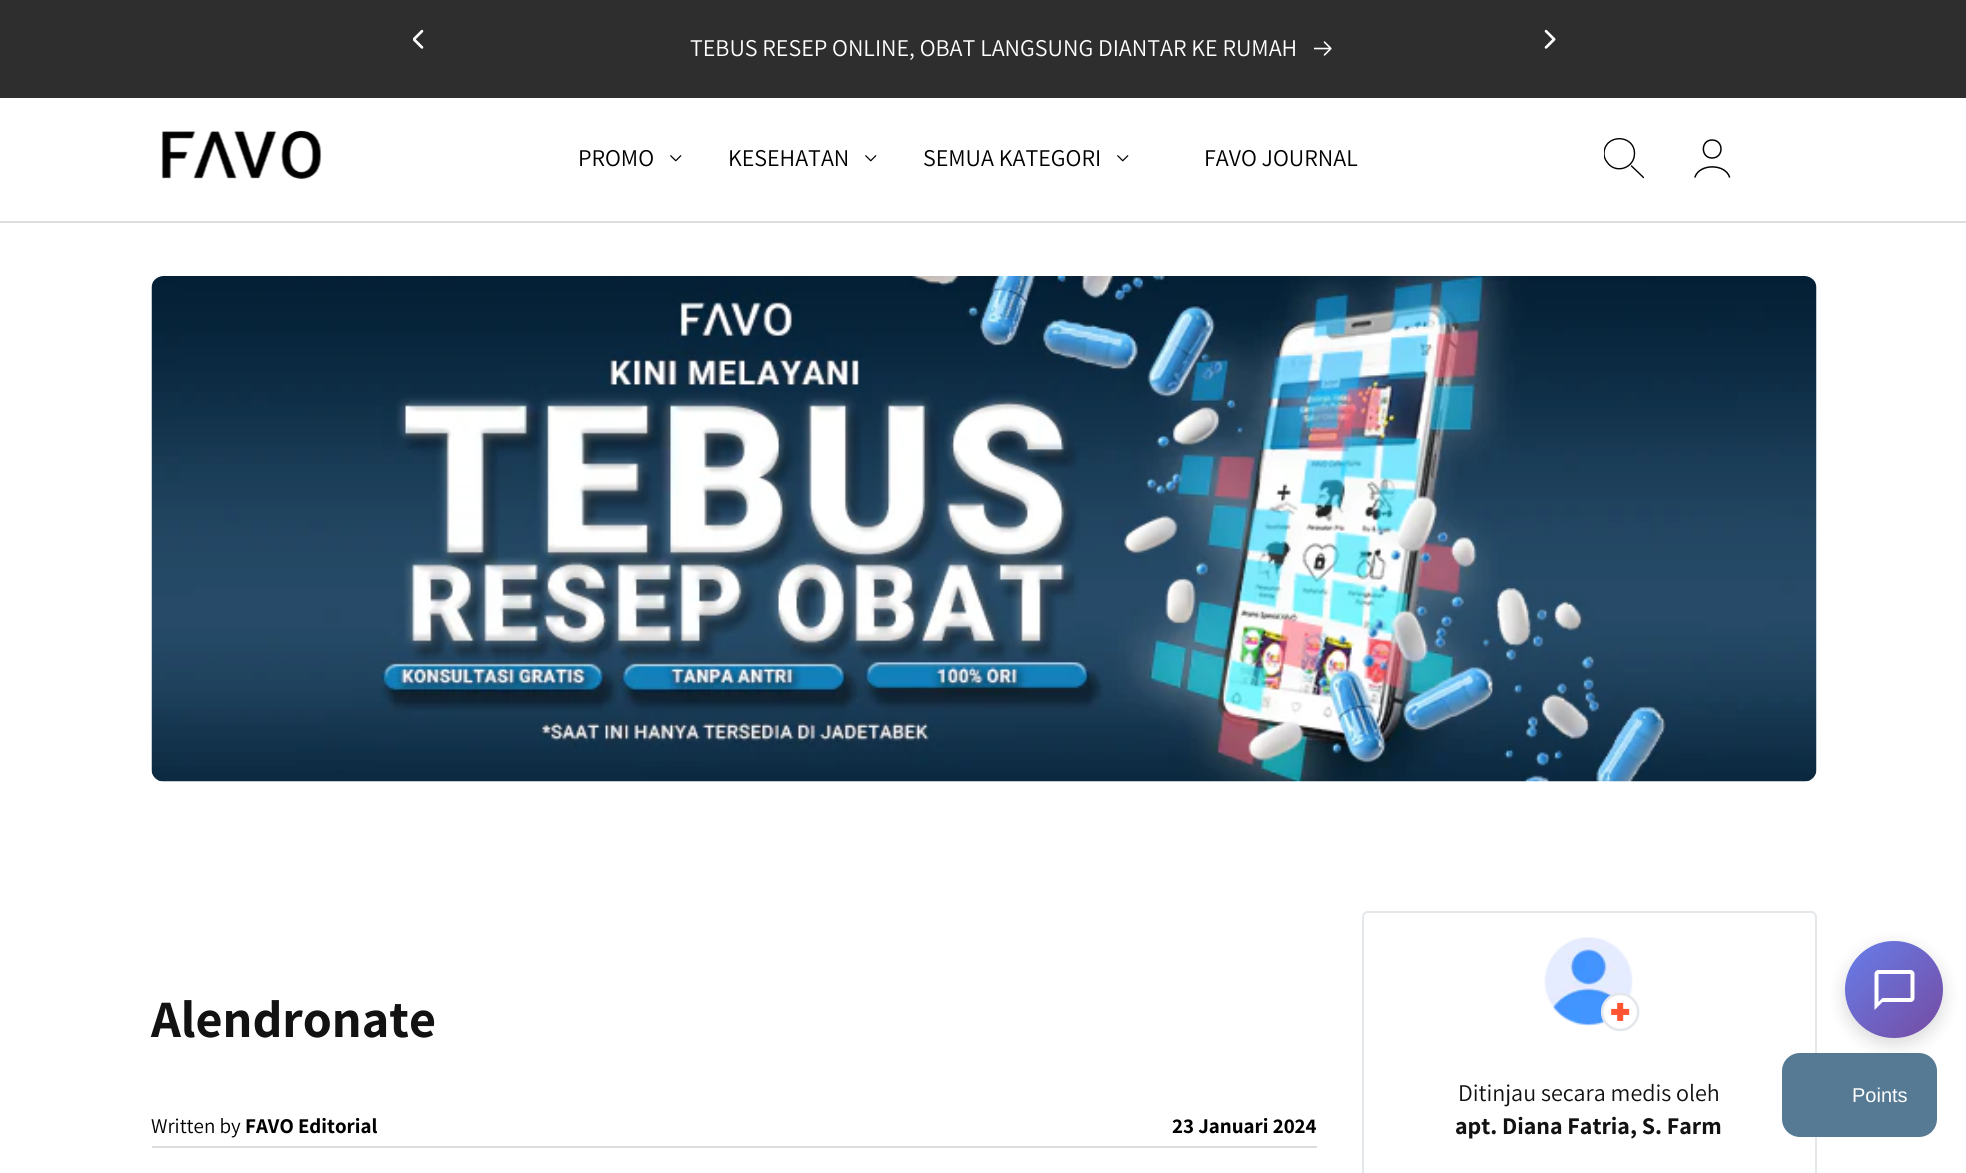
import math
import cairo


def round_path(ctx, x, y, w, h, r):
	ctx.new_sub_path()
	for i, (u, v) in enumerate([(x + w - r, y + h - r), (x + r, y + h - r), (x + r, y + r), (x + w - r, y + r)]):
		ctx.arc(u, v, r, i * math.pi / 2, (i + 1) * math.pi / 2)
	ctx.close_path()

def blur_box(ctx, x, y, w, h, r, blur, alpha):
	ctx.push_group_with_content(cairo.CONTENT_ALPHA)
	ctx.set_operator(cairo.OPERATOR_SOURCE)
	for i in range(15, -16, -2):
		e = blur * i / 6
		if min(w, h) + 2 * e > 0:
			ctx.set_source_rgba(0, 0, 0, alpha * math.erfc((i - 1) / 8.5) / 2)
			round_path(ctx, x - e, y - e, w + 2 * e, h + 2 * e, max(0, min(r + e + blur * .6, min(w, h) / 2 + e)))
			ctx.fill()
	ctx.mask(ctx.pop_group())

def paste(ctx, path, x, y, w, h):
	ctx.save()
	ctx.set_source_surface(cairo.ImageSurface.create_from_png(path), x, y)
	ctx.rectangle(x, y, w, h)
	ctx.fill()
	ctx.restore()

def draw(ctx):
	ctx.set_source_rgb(1, 1, 1)
	ctx.paint()
	ctx.set_source_rgb(0.18, 0.18, 0.18)
	ctx.rectangle(0, 0, 1966, 98)
	ctx.fill()
	paste(ctx, 'media/1.png', 413, 29, 11, 20)
	ctx.select_font_face('Assistant')
	ctx.set_font_size(24)
	ctx.set_source_rgb(1, 1, 1)
	ctx.move_to(690, 56)
	ctx.show_text('TEBUS RESEP ONLINE, OBAT LANGSUNG DIANTAR KE RUMAH')
	paste(ctx, 'media/2.png', 1314, 41, 18, 15)
	paste(ctx, 'media/3.png', 1544, 29, 12, 20)
	ctx.set_source_rgb(0.867, 0.867, 0.867)
	ctx.rectangle(0, 221, 1966, 2)
	ctx.fill()
	paste(ctx, 'media/4.png', 161, 130, 161, 49)
	ctx.set_source_rgb(0, 0, 0)
	ctx.move_to(578, 166)
	ctx.show_text('PROMO')
	paste(ctx, 'media/5.png', 670, 155, 12, 7)
	ctx.move_to(728, 166)
	ctx.show_text('KESEHATAN')
	paste(ctx, 'media/5.png', 865, 155, 12, 7)
	ctx.move_to(923, 166)
	ctx.show_text('SEMUA KATEGORI')
	paste(ctx, 'media/5.png', 1117, 155, 12, 7)
	ctx.move_to(1204, 166)
	ctx.show_text('FAVO JOURNAL')
	ctx.save()
	ctx.rectangle(1604, 137, 40, 43)
	ctx.clip()
	ctx.new_path()
	ctx.move_to(1643.5, 177.5)
	ctx.line_to(1631.5, 166)
	ctx.move_to(1634.5, 153.5)
	ctx.curve_to(1634.5, 168.5, 1615, 174.5, 1607, 162)
	ctx.curve_to(1605, 159.5, 1604, 156.5, 1604, 153.5)
	ctx.curve_to(1604.5, 133.5, 1634.5, 134, 1634.5, 153.5)
	ctx.close_path()
	ctx.set_line_width(1.4)
	ctx.set_line_cap(cairo.LINE_CAP_ROUND)
	ctx.stroke()
	ctx.restore()
	ctx.new_path()
	ctx.move_to(1729.5, 177)
	ctx.curve_to(1725, 163.5, 1699.5, 163.5, 1695, 177)
	ctx.move_to(1712, 158)
	ctx.curve_to(1724, 158, 1724, 140, 1712, 140)
	ctx.curve_to(1700.5, 140, 1700.5, 158, 1712, 158)
	ctx.close_path()
	ctx.set_line_width(1.5)
	ctx.set_line_cap(cairo.LINE_CAP_ROUND)
	ctx.stroke()
	paste(ctx, 'media/6.png', 151, 276, 1666, 506)
	ctx.select_font_face('Assistant', cairo.FONT_SLANT_NORMAL, cairo.FONT_WEIGHT_BOLD)
	ctx.set_font_size(52.5)
	ctx.set_source_rgb(0.071, 0.071, 0.071)
	ctx.move_to(151, 1037)
	ctx.show_text('Alendronate')
	ctx.set_source_rgb(0.867, 0.867, 0.867)
	ctx.rectangle(152, 1146, 1165, 2)
	ctx.fill()
	ctx.select_font_face('Assistant')
	ctx.set_font_size(21)
	ctx.set_source_rgb(0, 0, 0)
	ctx.move_to(151, 1133)
	ctx.show_text('Written by')
	ctx.select_font_face('Assistant', cairo.FONT_SLANT_NORMAL, cairo.FONT_WEIGHT_BOLD)
	ctx.move_to(245, 1133)
	ctx.show_text('FAVO Editorial')
	ctx.move_to(1172, 1133)
	ctx.show_text('23 Januari 2024')
	round_path(ctx, 1363, 912, 453, 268, 5)
	ctx.set_source_rgb(0.894, 0.91, 0.925)
	ctx.set_line_width(2)
	ctx.set_line_cap(cairo.LINE_CAP_BUTT)
	ctx.stroke()
	paste(ctx, 'media/7.png', 1544, 937, 89, 89)
	paste(ctx, 'media/8.png', 1601, 993, 39, 39)
	ctx.select_font_face('Assistant')
	ctx.set_font_size(24)
	ctx.set_source_rgb(0.071, 0.071, 0.071)
	ctx.move_to(1458, 1101)
	ctx.show_text('Ditinjau secara medis oleh')
	ctx.select_font_face('Assistant', cairo.FONT_SLANT_NORMAL, cairo.FONT_WEIGHT_BOLD)
	ctx.move_to(1455, 1134)
	ctx.show_text('apt. Diana Fatria, S. Farm')
	ctx.set_source_rgb(0.337, 0.478, 0.58)
	round_path(ctx, 1782, 1053, 155, 84, 18)
	ctx.fill()
	ctx.set_source_rgb(0, 0, 0)
	blur_box(ctx, 1845, 947, 98, 97, 48.5, 9, 0.15)
	gradient = cairo.LinearGradient(1845, 941, 1943, 1038)
	gradient.add_color_stop_rgba(0, 0.4, 0.494, 0.918, 1)
	gradient.add_color_stop_rgba(1, 0.463, 0.294, 0.635, 1)
	ctx.set_source(gradient)
	round_path(ctx, 1845, 941, 98, 97, 48.5)
	ctx.fill()
	paste(ctx, 'media/9.png', 1874, 970, 41, 40)
	ctx.select_font_face('Liberation Sans')
	ctx.set_font_size(20)
	ctx.set_source_rgb(1, 1, 1)
	ctx.move_to(1852, 1102)
	ctx.show_text('Points')


surface = cairo.ImageSurface(cairo.FORMAT_RGB24, 1966, 1173)
ctx = cairo.Context(surface)
options = cairo.FontOptions()
options.set_hint_metrics(cairo.HINT_METRICS_OFF)
options.set_hint_style(cairo.HINT_STYLE_NONE)
ctx.set_font_options(options)
ctx.set_miter_limit(4)
draw(ctx)
surface.write_to_png('image.png')
